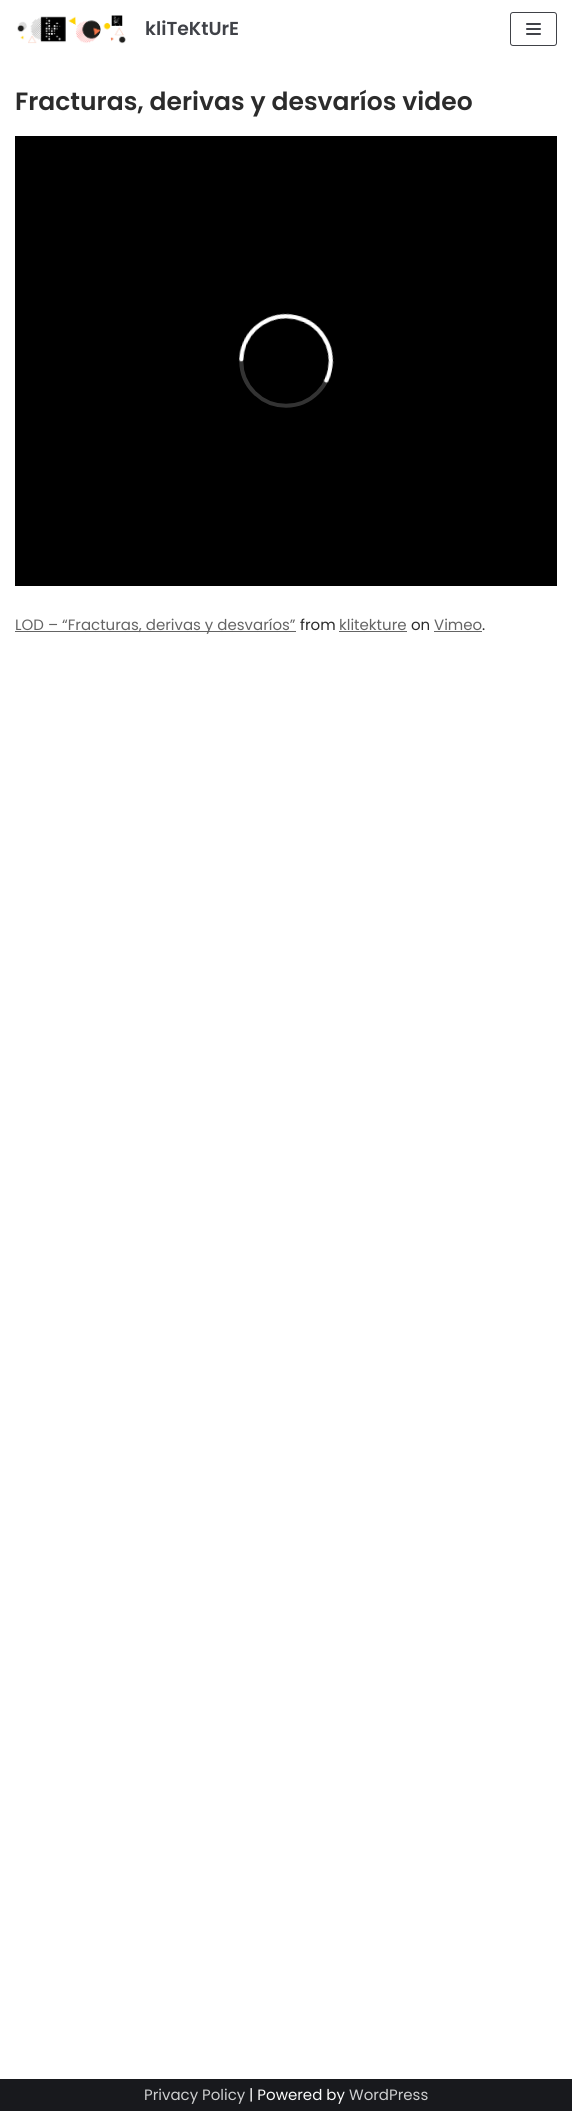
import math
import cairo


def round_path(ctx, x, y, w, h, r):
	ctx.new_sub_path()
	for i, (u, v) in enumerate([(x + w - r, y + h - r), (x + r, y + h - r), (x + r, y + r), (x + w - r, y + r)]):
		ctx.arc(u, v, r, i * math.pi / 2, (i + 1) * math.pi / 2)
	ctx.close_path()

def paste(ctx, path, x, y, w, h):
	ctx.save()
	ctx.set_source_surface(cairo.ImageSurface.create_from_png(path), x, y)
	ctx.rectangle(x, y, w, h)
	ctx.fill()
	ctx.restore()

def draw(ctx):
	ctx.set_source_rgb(1, 1, 1)
	ctx.paint()
	paste(ctx, 'media/1.png', 17, 15, 109, 29)
	ctx.select_font_face('Poppins SemiBold')
	ctx.set_font_size(18.75)
	ctx.set_source_rgb(0.251, 0.259, 0.282)
	ctx.move_to(145, 35)
	ctx.show_text('kliTeKtUrE')
	round_path(ctx, 510.5, 12.5, 46, 33, 2.5)
	ctx.set_line_width(1)
	ctx.stroke()
	round_path(ctx, 526, 23, 15, 2, 1)
	ctx.fill()
	round_path(ctx, 526, 28, 15, 2, 1)
	ctx.fill()
	round_path(ctx, 526, 33, 15, 2, 1)
	ctx.fill()
	ctx.set_font_size(25)
	ctx.set_source_rgb(0.169, 0.169, 0.169)
	ctx.move_to(15, 110)
	ctx.show_text('Fracturas, derivas y desvaríos video')
	paste(ctx, 'media/2.png', 15, 136, 542, 450)
	ctx.set_source_rgb(0.392, 0.392, 0.392)
	ctx.rectangle(15, 631, 281, 1)
	ctx.fill()
	ctx.select_font_face('Poppins')
	ctx.set_font_size(15)
	ctx.move_to(15, 630)
	ctx.show_text('LOD – “Fracturas, derivas y desvaríos”')
	ctx.set_source_rgb(0.169, 0.169, 0.169)
	ctx.move_to(300, 630)
	ctx.show_text('from')
	ctx.set_source_rgb(0.392, 0.392, 0.392)
	ctx.move_to(339, 630)
	ctx.show_text('klitekture')
	ctx.rectangle(339, 631, 68, 1)
	ctx.fill()
	ctx.set_source_rgb(0.169, 0.169, 0.169)
	ctx.move_to(411, 630)
	ctx.show_text('on')
	ctx.set_source_rgb(0.392, 0.392, 0.392)
	ctx.move_to(434, 630)
	ctx.show_text('Vimeo')
	ctx.rectangle(434, 631, 48, 1)
	ctx.fill()
	ctx.set_source_rgb(0.169, 0.169, 0.169)
	ctx.move_to(482, 630)
	ctx.show_text('.')
	ctx.set_source_rgb(0.094, 0.098, 0.114)
	ctx.rectangle(0, 2079, 572, 32)
	ctx.fill()
	ctx.set_source_rgb(0.808, 0.812, 0.816)
	ctx.move_to(144, 2100)
	ctx.show_text('Privacy Policy')
	ctx.set_source_rgb(0.992, 0.992, 0.992)
	ctx.move_to(249, 2100)
	ctx.show_text('| Powered by')
	ctx.set_source_rgb(0.808, 0.812, 0.816)
	ctx.move_to(349, 2100)
	ctx.show_text('WordPress')


surface = cairo.ImageSurface(cairo.FORMAT_RGB24, 572, 2111)
ctx = cairo.Context(surface)
options = cairo.FontOptions()
options.set_hint_metrics(cairo.HINT_METRICS_OFF)
options.set_hint_style(cairo.HINT_STYLE_NONE)
ctx.set_font_options(options)
ctx.set_miter_limit(4)
draw(ctx)
surface.write_to_png('image.png')
